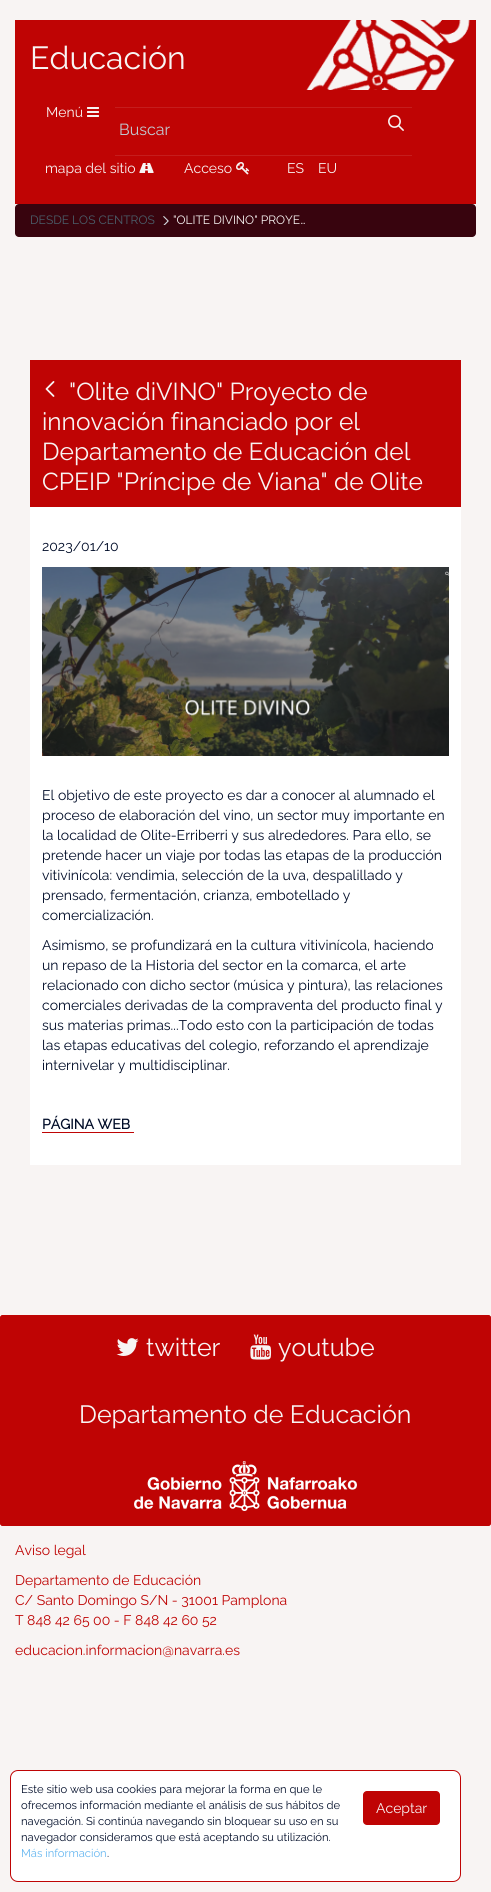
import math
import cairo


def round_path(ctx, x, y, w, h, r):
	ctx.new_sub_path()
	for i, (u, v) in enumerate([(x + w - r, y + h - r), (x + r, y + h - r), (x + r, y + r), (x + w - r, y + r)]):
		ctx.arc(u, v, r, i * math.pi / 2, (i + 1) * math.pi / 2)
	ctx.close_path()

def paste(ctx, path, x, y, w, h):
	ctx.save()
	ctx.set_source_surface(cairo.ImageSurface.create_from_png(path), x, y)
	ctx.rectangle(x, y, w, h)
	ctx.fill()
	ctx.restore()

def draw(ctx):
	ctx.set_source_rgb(0.969, 0.957, 0.953)
	ctx.paint()
	ctx.set_source_rgb(0.749, 0.016, 0.016)
	ctx.rectangle(15, 20, 461, 184)
	ctx.fill()
	paste(ctx, 'media/1.png', 306, 20, 164, 70)
	ctx.select_font_face('Raleway Thin')
	ctx.set_font_size(32)
	ctx.set_source_rgb(0.969, 0.957, 0.953)
	ctx.move_to(30, 69)
	ctx.show_text('Educación')
	ctx.set_font_size(14)
	ctx.move_to(46, 117)
	ctx.show_text('Menú')
	paste(ctx, 'media/2.png', 87, 107, 12, 10)
	ctx.set_source_rgb(0.773, 0.114, 0.114)
	ctx.rectangle(115, 155, 297, 1)
	ctx.fill()
	ctx.rectangle(115, 107, 297, 1)
	ctx.fill()
	ctx.set_font_size(16)
	ctx.set_source_rgb(0.753, 0.8, 0.827)
	ctx.move_to(119, 135)
	ctx.show_text('Buscar')
	paste(ctx, 'media/3.png', 388, 115, 16, 16)
	ctx.set_font_size(14)
	ctx.set_source_rgb(0.969, 0.957, 0.953)
	ctx.move_to(45, 173)
	ctx.show_text('mapa del sitio')
	paste(ctx, 'media/4.png', 139, 163, 15, 10)
	ctx.move_to(184, 173)
	ctx.show_text('Acceso')
	paste(ctx, 'media/5.png', 236, 162, 14, 13)
	ctx.move_to(287, 173)
	ctx.show_text('ES')
	ctx.move_to(318, 173)
	ctx.show_text('EU')
	ctx.set_source_rgb(0.22, 0.016, 0.055)
	round_path(ctx, 15, 204, 461, 33, 4)
	ctx.fill()
	ctx.set_font_size(12)
	ctx.set_source_rgb(0.29, 0.369, 0.416)
	ctx.move_to(30, 224)
	ctx.show_text('DESDE LOS CENTROS')
	paste(ctx, 'media/6.png', 163, 216, 6, 9)
	ctx.set_source_rgb(0.969, 0.957, 0.953)
	ctx.move_to(173, 224)
	ctx.show_text('"OLITE DIVINO" PROYE…')
	ctx.set_source_rgb(1, 1, 1)
	ctx.rectangle(30, 507, 431, 658)
	ctx.fill()
	ctx.set_source_rgb(0.749, 0.016, 0.016)
	ctx.rectangle(30, 360, 431, 147)
	ctx.fill()
	paste(ctx, 'media/7.png', 45, 381, 10, 16)
	ctx.set_font_size(24.5)
	ctx.set_source_rgb(0.969, 0.957, 0.953)
	for x, y, s in [
		(69, 400, '"Olite diVINO" Proyecto de'),
		(42, 430, 'innovación financiado por el'),
		(42, 460, 'Departamento de Educación del'),
		(42, 490, 'CPEIP "Príncipe de Viana" de Olite'),
	]:
		ctx.move_to(x, y)
		ctx.show_text(s)
	ctx.set_font_size(14)
	ctx.set_source_rgb(0, 0.047, 0.157)
	ctx.move_to(42, 551)
	ctx.show_text('2023/01/10')
	paste(ctx, 'media/8.png', 42, 567, 407, 189)
	for x, y, s in [
		(42, 800, 'El objetivo de este proyecto es dar a conocer al alumnado el'),
		(42, 820, 'proceso de elaboración del vino, un sector muy importante en'),
		(42, 840, 'la localidad de Olite-Erriberri y sus alrededores. Para ello, se'),
		(42, 860, 'pretende hacer un viaje por todas las etapas de la producción'),
		(42, 880, 'vitivinícola: vendimia, selección de la uva, despalillado y'),
		(42, 900, 'prensado, fermentación, crianza, embotellado y'),
		(42, 920, 'comercialización.'),
		(42, 950, 'Asimismo, se profundizará en la cultura vitivinícola, haciendo'),
		(42, 970, 'un repaso de la Historia del sector en la comarca, el arte'),
		(42, 990, 'relacionado con dicho sector (música y pintura), las relaciones'),
		(42, 1010, 'comerciales derivadas de la compraventa del producto final y'),
		(42, 1030, 'sus materias primas...Todo esto con la participación de todas'),
		(42, 1050, 'las etapas educativas del colegio, reforzando el aprendizaje'),
		(42, 1070, 'internivelar y multidisciplinar.'),
	]:
		ctx.move_to(x, y)
		ctx.show_text(s)
	ctx.select_font_face('Raleway', cairo.FONT_SLANT_NORMAL, cairo.FONT_WEIGHT_BOLD)
	ctx.move_to(42, 1129)
	ctx.show_text('PÁGINA WEB')
	ctx.set_source_rgb(0.749, 0.016, 0.016)
	ctx.rectangle(42, 1132, 92, 1)
	ctx.fill()
	round_path(ctx, 0, 1315, 491, 211, 3)
	ctx.fill()
	round_path(ctx, 0, 1315, 491, 67, 3)
	ctx.fill()
	paste(ctx, 'media/9.png', 116, 1338, 23, 18)
	ctx.select_font_face('Raleway Thin')
	ctx.set_font_size(25)
	ctx.set_source_rgb(0.969, 0.957, 0.953)
	ctx.move_to(146, 1356)
	ctx.show_text('twitter')
	paste(ctx, 'media/10.png', 250, 1334, 22, 26)
	ctx.move_to(278, 1356)
	ctx.show_text('youtube')
	ctx.move_to(79, 1423)
	ctx.show_text('Departamento de Educación')
	ctx.set_source_rgb(0.749, 0.016, 0.016)
	round_path(ctx, 0, 1449, 491, 77, 3)
	ctx.fill()
	paste(ctx, 'media/11.png', 134, 1461, 223, 50)
	ctx.set_font_size(14)
	for x, y, s in [
		(15, 1555, 'Aviso legal'),
		(15, 1585, 'Departamento de Educación'),
		(15, 1605, 'C/ Santo Domingo S/N - 31001 Pamplona'),
		(15, 1625, 'T 848 42 65 00 - F 848 42 60 52'),
		(15, 1655, 'educacion.informacion@navarra.es'),
	]:
		ctx.move_to(x, y)
		ctx.show_text(s)
	ctx.set_source_rgb(1, 1, 1)
	round_path(ctx, 10.5, 1770.5, 450, 111, 7.5)
	ctx.fill_preserve()
	ctx.set_source_rgb(0.749, 0.016, 0.016)
	ctx.set_line_width(1)
	ctx.stroke()
	ctx.set_font_size(11.2)
	ctx.set_source_rgb(0, 0.047, 0.157)
	for x, y, s in [
		(21, 1793, 'Este sitio web usa cookies para mejorar la forma en que le'),
		(21, 1809, 'ofrecemos información mediante el análisis de sus hábitos de'),
		(21, 1825, 'navegación. Si continúa navegando sin bloquear su uso en su'),
		(21, 1841, 'navegador consideramos que está aceptando su utilización.'),
	]:
		ctx.move_to(x, y)
		ctx.show_text(s)
	ctx.set_source_rgb(0.396, 0.714, 0.941)
	ctx.move_to(21, 1857)
	ctx.show_text('Más información')
	ctx.set_source_rgb(0, 0.047, 0.157)
	ctx.move_to(107, 1857)
	ctx.show_text('.')
	ctx.set_source_rgb(0.749, 0.016, 0.016)
	round_path(ctx, 363, 1791, 77, 34, 4)
	ctx.fill()
	ctx.set_font_size(14)
	ctx.set_source_rgb(0.969, 0.957, 0.953)
	ctx.move_to(376, 1813)
	ctx.show_text('Aceptar')


surface = cairo.ImageSurface(cairo.FORMAT_RGB24, 491, 1892)
ctx = cairo.Context(surface)
options = cairo.FontOptions()
options.set_hint_metrics(cairo.HINT_METRICS_OFF)
options.set_hint_style(cairo.HINT_STYLE_NONE)
ctx.set_font_options(options)
ctx.set_miter_limit(4)
draw(ctx)
surface.write_to_png('image.png')
